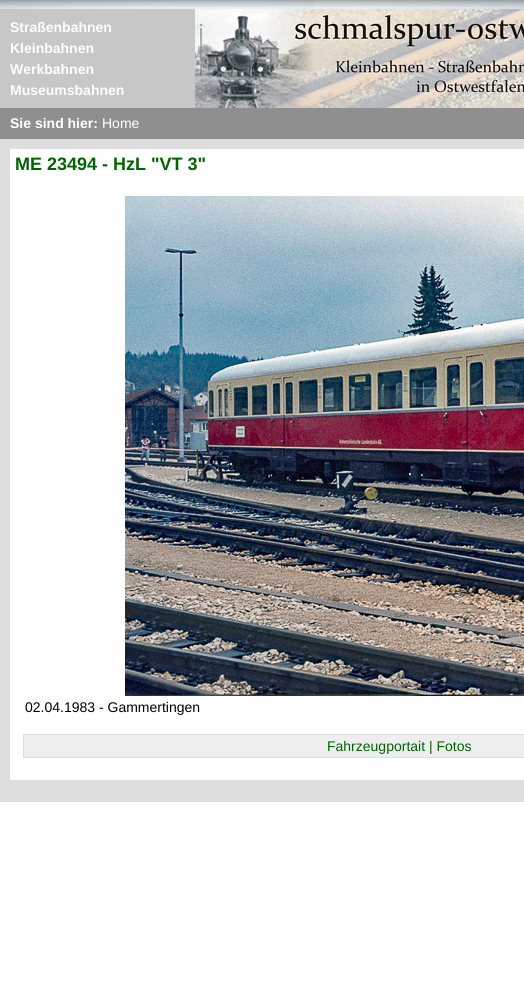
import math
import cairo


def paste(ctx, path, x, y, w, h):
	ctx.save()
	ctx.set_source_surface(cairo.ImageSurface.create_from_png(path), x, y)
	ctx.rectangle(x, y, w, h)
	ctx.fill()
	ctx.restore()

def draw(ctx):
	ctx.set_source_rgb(1, 1, 1)
	ctx.paint()
	paste(ctx, 'media/1.png', 0, 0, 524, 9)
	ctx.set_source_rgb(0.871, 0.871, 0.871)
	ctx.rectangle(0, 139, 524, 663)
	ctx.fill()
	ctx.set_source_rgb(0.561, 0.561, 0.561)
	ctx.rectangle(0, 108, 524, 31)
	ctx.fill()
	ctx.set_source_rgb(0.78, 0.78, 0.78)
	ctx.rectangle(0, 9, 195, 99)
	ctx.fill()
	ctx.select_font_face('Liberation Sans', cairo.FONT_SLANT_NORMAL, cairo.FONT_WEIGHT_BOLD)
	ctx.set_font_size(14)
	ctx.set_source_rgb(1, 1, 1)
	for x, y, s in [
		(10, 32, 'Straßenbahnen'),
		(10, 53, 'Kleinbahnen'),
		(10, 74, 'Werkbahnen'),
		(10, 95, 'Museumsbahnen'),
	]:
		ctx.move_to(x, y)
		ctx.show_text(s)
	paste(ctx, 'media/2.png', 195, 9, 329, 99)
	ctx.move_to(10, 128)
	ctx.show_text('Sie sind hier:')
	ctx.select_font_face('Liberation Sans')
	ctx.move_to(102, 128)
	ctx.show_text('Home')
	ctx.rectangle(10, 149, 514, 631)
	ctx.fill()
	ctx.select_font_face('Liberation Sans', cairo.FONT_SLANT_NORMAL, cairo.FONT_WEIGHT_BOLD)
	ctx.set_font_size(18)
	ctx.set_source_rgb(0, 0.392, 0)
	ctx.move_to(15, 170)
	ctx.show_text('ME 23494 - HzL "VT 3"')
	paste(ctx, 'media/3.png', 125, 196, 399, 500)
	ctx.select_font_face('Liberation Sans')
	ctx.set_font_size(14)
	ctx.set_source_rgb(0, 0, 0)
	ctx.move_to(25, 712)
	ctx.show_text('02.04.1983 - Gammertingen')
	ctx.set_source_rgb(0.933, 0.933, 0.933)
	ctx.rectangle(23.5, 734.5, 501, 23)
	ctx.fill_preserve()
	ctx.set_source_rgb(0.867, 0.867, 0.867)
	ctx.set_line_width(1)
	ctx.stroke()
	ctx.set_source_rgb(0, 0.392, 0)
	ctx.move_to(327, 751)
	ctx.show_text('Fahrzeugportait | Fotos')


surface = cairo.ImageSurface(cairo.FORMAT_RGB24, 524, 996)
ctx = cairo.Context(surface)
options = cairo.FontOptions()
options.set_hint_metrics(cairo.HINT_METRICS_OFF)
options.set_hint_style(cairo.HINT_STYLE_NONE)
ctx.set_font_options(options)
ctx.set_miter_limit(4)
draw(ctx)
surface.write_to_png('image.png')
